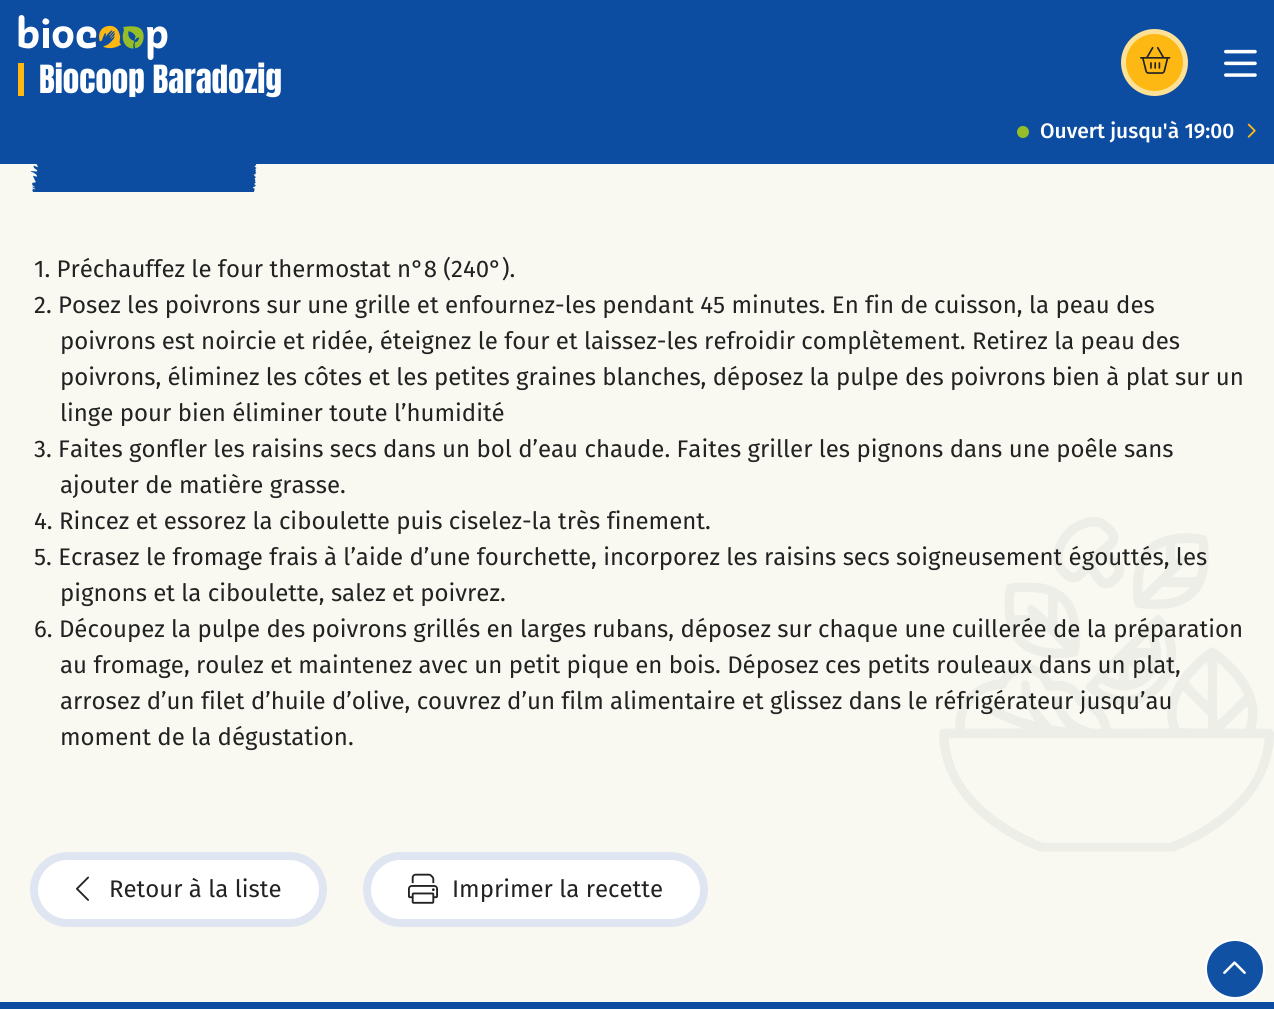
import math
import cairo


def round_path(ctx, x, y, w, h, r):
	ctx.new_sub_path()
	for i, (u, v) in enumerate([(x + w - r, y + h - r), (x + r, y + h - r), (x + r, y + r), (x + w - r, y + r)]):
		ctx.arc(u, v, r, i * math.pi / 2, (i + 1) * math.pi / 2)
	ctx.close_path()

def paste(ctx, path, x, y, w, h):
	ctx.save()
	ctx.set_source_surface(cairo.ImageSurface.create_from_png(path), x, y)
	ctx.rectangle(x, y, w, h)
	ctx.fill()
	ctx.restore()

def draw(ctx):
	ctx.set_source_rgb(0.047, 0.302, 0.635)
	ctx.paint()
	paste(ctx, 'media/1.png', 18, 15, 150, 45)
	ctx.set_source_rgb(0.992, 0.722, 0.075)
	ctx.rectangle(18, 63, 6, 33)
	ctx.fill()
	ctx.select_font_face('Anton')
	ctx.set_font_size(33)
	ctx.set_source_rgb(1, 1, 1)
	ctx.move_to(39, 93)
	ctx.show_text('Biocoop Baradozig')
	ctx.set_source_rgb(0.992, 0.722, 0.075)
	ctx.new_path()
	ctx.arc(1154.5, 62.5, 31, 0, 2 * math.pi)
	ctx.fill_preserve()
	ctx.set_source_rgb(0.988, 0.882, 0.592)
	ctx.set_line_width(5)
	ctx.stroke()
	paste(ctx, 'media/2.png', 1140, 46, 31, 28)
	paste(ctx, 'media/3.png', 1224, 49, 33, 28)
	ctx.set_source_rgb(0.588, 0.745, 0.157)
	ctx.arc(1023, 132, 6, 0, 2 * math.pi)
	ctx.fill()
	ctx.select_font_face('Fira Sans Medium')
	ctx.set_font_size(21)
	ctx.set_source_rgb(1, 1, 1)
	ctx.move_to(1040, 138)
	ctx.show_text('Ouvert jusqu\'à 19:00')
	paste(ctx, 'media/4.png', 1247, 123, 9, 15)
	ctx.set_source_rgb(0.973, 0.973, 0.949)
	ctx.rectangle(0, 164, 1274, 838)
	ctx.fill()
	ctx.set_source_rgb(0.067, 0.318, 0.643)
	ctx.arc(1235, 969, 29, 0, 2 * math.pi)
	ctx.fill_preserve()
	ctx.set_source_rgb(1, 1, 1)
	ctx.set_line_width(2)
	ctx.stroke()
	paste(ctx, 'media/5.png', 1223, 961, 23, 13)
	paste(ctx, 'media/6.png', 30, 164, 227, 28)
	ctx.select_font_face('Fira Sans')
	ctx.set_font_size(24)
	ctx.set_source_rgb(0.133, 0.133, 0.133)
	for x, y, s in [
		(34, 277, '1. Préchauffez le four thermostat n°8 (240°).'),
		(34, 313, '2. Posez les poivrons sur une grille et enfournez-les pendant 45 minutes. En fin de cuisson, la peau des'),
		(60, 349, 'poivrons est noircie et ridée, éteignez le four et laissez-les refroidir complètement. Retirez la peau des'),
		(60, 385, 'poivrons, éliminez les côtes et les petites graines blanches, déposez la pulpe des poivrons bien à plat sur un'),
		(60, 421, 'linge pour bien éliminer toute l’humidité'),
		(34, 457, '3. Faites gonfler les raisins secs dans un bol d’eau chaude. Faites griller les pignons dans une poêle sans'),
		(60, 493, 'ajouter de matière grasse.'),
		(34, 529, '4. Rincez et essorez la ciboulette puis ciselez-la très finement.'),
		(34, 565, '5. Ecrasez le fromage frais à l’aide d’une fourchette, incorporez les raisins secs soigneusement égouttés, les'),
		(60, 601, 'pignons et la ciboulette, salez et poivrez.'),
		(34, 637, '6. Découpez la pulpe des poivrons grillés en larges rubans, déposez sur chaque une cuillerée de la préparation'),
		(60, 673, 'au fromage, roulez et maintenez avec un petit pique en bois. Déposez ces petits rouleaux dans un plat,'),
		(60, 709, 'arrosez d’un filet d’huile d’olive, couvrez d’un film alimentaire et glissez dans le réfrigérateur jusqu’au'),
		(60, 745, 'moment de la dégustation.'),
	]:
		ctx.move_to(x, y)
		ctx.show_text(s)
	paste(ctx, 'media/7.png', 939, 517, 335, 335)
	ctx.set_source_rgb(1, 1, 1)
	round_path(ctx, 34, 856, 289, 67, 33.5)
	ctx.fill_preserve()
	ctx.set_source_rgb(0.875, 0.898, 0.945)
	ctx.set_line_width(8)
	ctx.stroke()
	paste(ctx, 'media/8.png', 76, 876, 13, 25)
	ctx.set_source_rgb(0.133, 0.133, 0.133)
	ctx.move_to(109, 897)
	ctx.show_text('Retour à la liste')
	ctx.set_source_rgb(1, 1, 1)
	round_path(ctx, 367, 856, 337, 67, 33.5)
	ctx.fill_preserve()
	ctx.set_source_rgb(0.875, 0.898, 0.945)
	ctx.stroke()
	paste(ctx, 'media/9.png', 408, 873, 30, 31)
	ctx.set_source_rgb(0.133, 0.133, 0.133)
	ctx.move_to(452, 897)
	ctx.show_text('Imprimer la recette')


surface = cairo.ImageSurface(cairo.FORMAT_RGB24, 1274, 1009)
ctx = cairo.Context(surface)
options = cairo.FontOptions()
options.set_hint_metrics(cairo.HINT_METRICS_OFF)
options.set_hint_style(cairo.HINT_STYLE_NONE)
ctx.set_font_options(options)
ctx.set_miter_limit(4)
draw(ctx)
surface.write_to_png('image.png')
